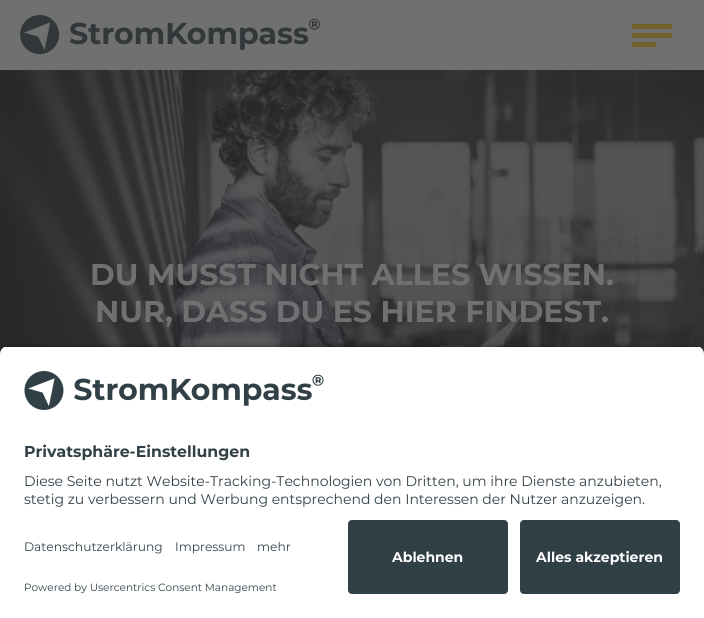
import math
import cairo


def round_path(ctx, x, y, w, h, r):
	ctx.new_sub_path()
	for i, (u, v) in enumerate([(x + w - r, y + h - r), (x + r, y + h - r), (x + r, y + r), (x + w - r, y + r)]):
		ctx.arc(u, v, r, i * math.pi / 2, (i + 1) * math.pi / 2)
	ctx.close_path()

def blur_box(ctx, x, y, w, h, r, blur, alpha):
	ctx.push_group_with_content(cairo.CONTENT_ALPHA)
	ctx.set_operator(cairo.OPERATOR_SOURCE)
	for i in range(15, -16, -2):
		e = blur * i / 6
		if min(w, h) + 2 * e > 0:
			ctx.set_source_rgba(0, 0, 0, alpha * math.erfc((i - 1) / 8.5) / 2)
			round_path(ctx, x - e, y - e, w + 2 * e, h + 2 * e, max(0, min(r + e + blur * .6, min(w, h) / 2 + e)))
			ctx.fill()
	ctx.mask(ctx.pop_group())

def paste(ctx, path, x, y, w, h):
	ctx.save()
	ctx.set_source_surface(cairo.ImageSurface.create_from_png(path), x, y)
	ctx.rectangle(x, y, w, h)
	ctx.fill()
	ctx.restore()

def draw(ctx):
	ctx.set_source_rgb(0.439, 0.439, 0.439)
	ctx.paint()
	paste(ctx, 'media/1.png', 20, 15, 300, 40)
	ctx.set_source_rgb(0.439, 0.376, 0.161)
	ctx.rectangle(632, 24, 40, 5)
	ctx.rectangle(632, 33, 40, 5)
	ctx.rectangle(632, 42, 24, 5)
	ctx.fill()
	paste(ctx, 'media/2.png', 0, 70, 704, 284)
	ctx.select_font_face('Montserrat', cairo.FONT_SLANT_NORMAL, cairo.FONT_WEIGHT_BOLD)
	ctx.set_font_size(30)
	ctx.set_source_rgb(0.439, 0.439, 0.439)
	ctx.move_to(90, 285)
	ctx.show_text('DU MUSST NICHT ALLES WISSEN.')
	ctx.move_to(95, 322)
	ctx.show_text('NUR, DASS DU ES HIER FINDEST.')
	ctx.set_source_rgb(0, 0, 0)
	blur_box(ctx, 0, 349, 704, 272, 8, 3.5, 0.8)
	ctx.save()
	ctx.new_path()
	ctx.move_to(8, 346)
	ctx.line_to(696, 346)
	ctx.curve_to(700.5, 346, 704, 349.5, 704, 354)
	ctx.line_to(704, 512)
	ctx.line_to(0, 512)
	ctx.line_to(0, 354)
	ctx.curve_to(0, 349.5, 3.5, 346, 8, 346)
	ctx.close_path()
	ctx.clip()
	ctx.set_source_rgb(1, 1, 1)
	ctx.rectangle(0, 347, 704, 165)
	ctx.fill()
	ctx.restore()
	paste(ctx, 'media/3.png', 24, 371, 300, 39)
	ctx.set_font_size(15.75)
	ctx.set_source_rgb(0.192, 0.251, 0.278)
	ctx.move_to(24, 457)
	ctx.show_text('Privatsphäre-Einstellungen')
	ctx.select_font_face('Montserrat')
	ctx.set_font_size(14)
	ctx.move_to(24, 486)
	ctx.show_text('Diese Seite nutzt Website-Tracking-Technologien von Dritten, um ihre Dienste anzubieten,')
	ctx.move_to(24, 504)
	ctx.show_text('stetig zu verbessern und Werbung entsprechend den Interessen der Nutzer anzuzeigen.')
	ctx.set_source_rgb(1, 1, 1)
	ctx.rectangle(0, 512, 704, 106)
	ctx.fill()
	ctx.set_font_size(12.25)
	ctx.set_source_rgb(0.192, 0.251, 0.278)
	for x, y, s in [
		(24, 551, 'Datenschutzerklärung'),
		(175, 551, 'Impressum'),
		(257, 551, 'mehr'),
	]:
		ctx.move_to(x, y)
		ctx.show_text(s)
	ctx.set_font_size(10.5)
	ctx.move_to(24, 591)
	ctx.show_text('Powered by Usercentrics Consent Management')
	round_path(ctx, 348, 520, 160, 74, 4)
	ctx.fill()
	ctx.select_font_face('Montserrat', cairo.FONT_SLANT_NORMAL, cairo.FONT_WEIGHT_BOLD)
	ctx.set_font_size(14)
	ctx.set_source_rgb(1, 1, 1)
	ctx.move_to(392, 562)
	ctx.show_text('Ablehnen')
	ctx.set_source_rgb(0.192, 0.251, 0.278)
	round_path(ctx, 520, 520, 160, 74, 4)
	ctx.fill()
	ctx.set_source_rgb(1, 1, 1)
	ctx.move_to(536, 562)
	ctx.show_text('Alles akzeptieren')


surface = cairo.ImageSurface(cairo.FORMAT_RGB24, 704, 618)
ctx = cairo.Context(surface)
options = cairo.FontOptions()
options.set_hint_metrics(cairo.HINT_METRICS_OFF)
options.set_hint_style(cairo.HINT_STYLE_NONE)
ctx.set_font_options(options)
ctx.set_miter_limit(4)
draw(ctx)
surface.write_to_png('image.png')
